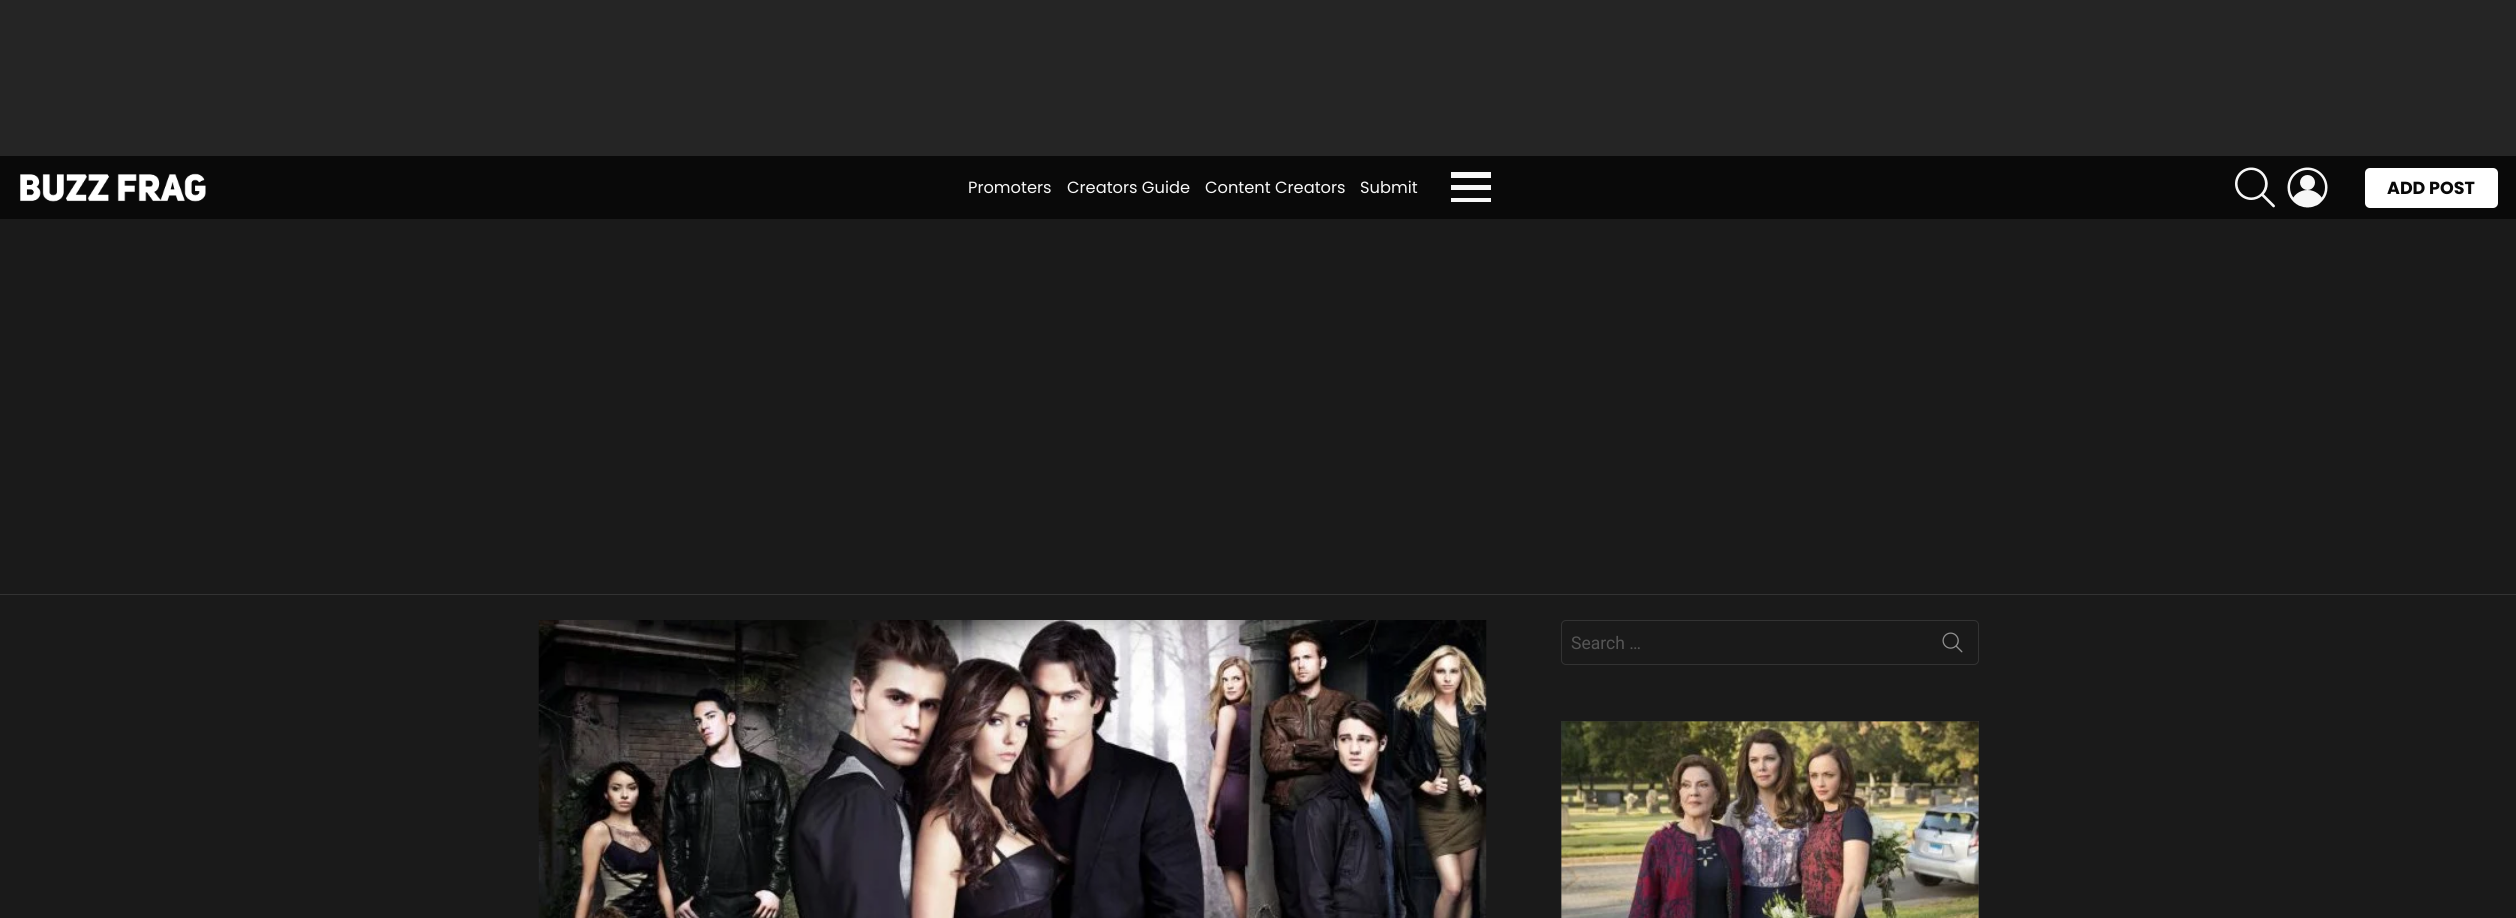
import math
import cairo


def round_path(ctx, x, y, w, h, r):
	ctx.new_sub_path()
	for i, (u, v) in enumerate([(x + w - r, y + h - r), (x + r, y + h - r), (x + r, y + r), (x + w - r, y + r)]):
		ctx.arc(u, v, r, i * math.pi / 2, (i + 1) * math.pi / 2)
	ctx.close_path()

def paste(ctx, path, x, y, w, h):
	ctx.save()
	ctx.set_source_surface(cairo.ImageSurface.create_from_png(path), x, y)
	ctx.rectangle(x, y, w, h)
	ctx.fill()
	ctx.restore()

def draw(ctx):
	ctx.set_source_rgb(0.102, 0.102, 0.102)
	ctx.paint()
	ctx.set_source_rgb(0.145, 0.145, 0.145)
	ctx.rectangle(0, 0, 2516, 156)
	ctx.fill()
	ctx.set_source_rgb(0.039, 0.039, 0.039)
	ctx.rectangle(0, 156, 2516, 63)
	ctx.fill()
	paste(ctx, 'media/1.png', 20, 173, 186, 29)
	ctx.select_font_face('Poppins')
	ctx.set_font_size(16.25)
	ctx.set_source_rgb(0.969, 0.969, 0.969)
	for x, y, s in [
		(968, 193, 'Promoters'),
		(1067, 193, 'Creators Guide'),
		(1205, 193, 'Content Creators'),
		(1360, 193, 'Submit'),
	]:
		ctx.move_to(x, y)
		ctx.show_text(s)
	ctx.new_path()
	ctx.move_to(1451, 172)
	ctx.line_to(1491, 172)
	ctx.line_to(1491, 178)
	ctx.line_to(1451, 178)
	ctx.close_path()
	ctx.move_to(1451, 185)
	ctx.line_to(1491, 185)
	ctx.line_to(1491, 190)
	ctx.line_to(1451, 190)
	ctx.close_path()
	ctx.move_to(1451, 198)
	ctx.line_to(1491, 198)
	ctx.line_to(1491, 202)
	ctx.line_to(1451, 202)
	ctx.close_path()
	ctx.fill()
	paste(ctx, 'media/2.png', 2235, 167, 40, 41)
	paste(ctx, 'media/3.png', 2287, 167, 41, 41)
	ctx.set_source_rgb(1, 1, 1)
	round_path(ctx, 2365, 168, 133, 40, 5)
	ctx.fill()
	ctx.select_font_face('Poppins', cairo.FONT_SLANT_NORMAL, cairo.FONT_WEIGHT_BOLD)
	ctx.set_font_size(17.5)
	ctx.set_source_rgb(0.039, 0.039, 0.039)
	ctx.move_to(2387, 194)
	ctx.show_text('ADD POST')
	ctx.set_source_rgb(0.2, 0.2, 0.2)
	ctx.rectangle(0, 594, 2516, 1)
	ctx.fill()
	paste(ctx, 'media/4.png', 538, 620, 949, 298)
	round_path(ctx, 1561.5, 620.5, 417, 44, 4.5)
	ctx.set_line_width(1)
	ctx.stroke()
	ctx.select_font_face('Roboto')
	ctx.set_source_rgb(0.333, 0.333, 0.333)
	ctx.move_to(1571, 649)
	ctx.show_text('Search …')
	paste(ctx, 'media/5.png', 1942, 632, 21, 21)
	ctx.set_source_rgb(0.2, 0.2, 0.2)
	ctx.rectangle(1561, 721, 418, 197)
	ctx.fill()
	paste(ctx, 'media/6.png', 1561, 721, 418, 197)


surface = cairo.ImageSurface(cairo.FORMAT_RGB24, 2516, 918)
ctx = cairo.Context(surface)
options = cairo.FontOptions()
options.set_hint_metrics(cairo.HINT_METRICS_OFF)
options.set_hint_style(cairo.HINT_STYLE_NONE)
ctx.set_font_options(options)
ctx.set_miter_limit(4)
draw(ctx)
surface.write_to_png('image.png')
